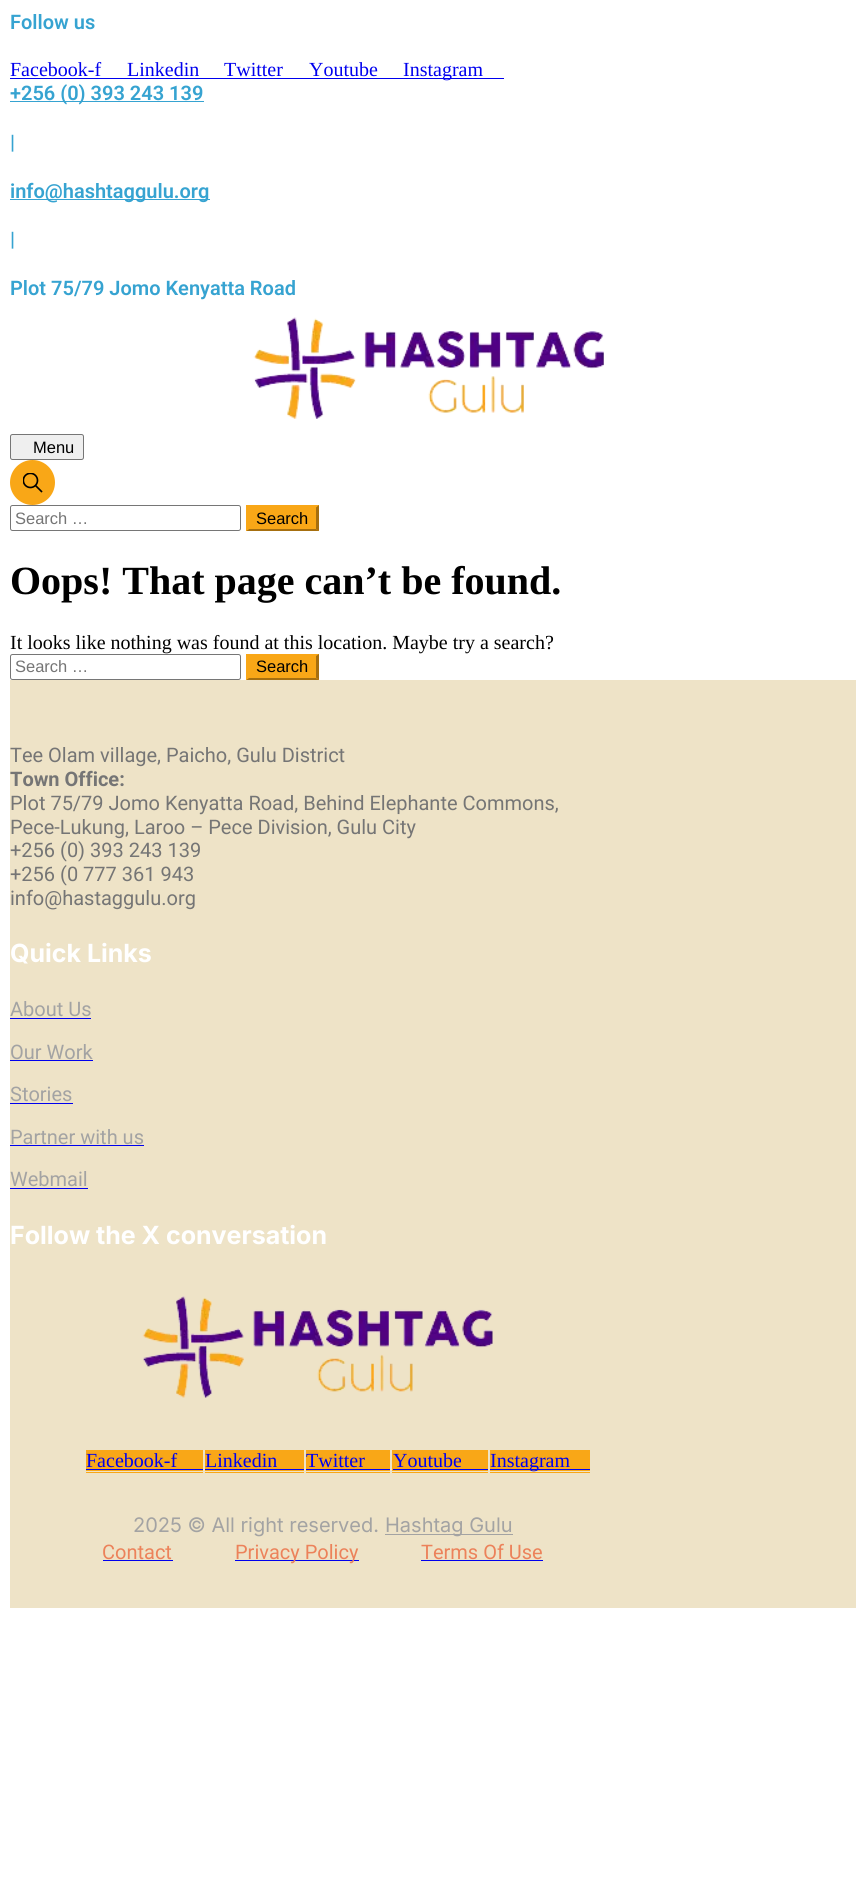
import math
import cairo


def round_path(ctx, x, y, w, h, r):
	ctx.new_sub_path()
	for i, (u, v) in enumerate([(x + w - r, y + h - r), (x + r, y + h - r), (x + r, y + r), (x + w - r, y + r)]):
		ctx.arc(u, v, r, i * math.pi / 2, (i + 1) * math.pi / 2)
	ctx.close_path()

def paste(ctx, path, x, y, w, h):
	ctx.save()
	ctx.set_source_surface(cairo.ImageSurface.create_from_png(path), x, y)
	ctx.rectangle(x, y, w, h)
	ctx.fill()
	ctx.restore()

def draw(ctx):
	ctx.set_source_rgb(1, 1, 1)
	ctx.paint()
	ctx.select_font_face('Roboto SemiBold')
	ctx.set_font_size(20)
	ctx.set_source_rgb(0.212, 0.639, 0.82)
	ctx.move_to(10, 29)
	ctx.show_text('Follow us')
	ctx.select_font_face('Liberation Serif')
	ctx.set_source_rgb(0, 0, 0.933)
	ctx.move_to(10, 76)
	ctx.show_text('Facebook-f')
	ctx.rectangle(10, 78, 494, 1)
	ctx.fill()
	for x, y, s in [
		(127, 76, 'Linkedin'),
		(224, 76, 'Twitter'),
		(309, 76, 'Youtube'),
		(403, 76, 'Instagram'),
	]:
		ctx.move_to(x, y)
		ctx.show_text(s)
	ctx.set_source_rgb(0.212, 0.639, 0.82)
	ctx.rectangle(10, 101, 194, 1)
	ctx.fill()
	ctx.select_font_face('Roboto SemiBold')
	ctx.move_to(10, 100)
	ctx.show_text('+256 (0) 393 243 139')
	ctx.move_to(10, 149)
	ctx.show_text('|')
	ctx.rectangle(10, 199, 200, 1)
	ctx.fill()
	for x, y, s in [
		(10, 198, 'info@hashtaggulu.org'),
		(10, 246, '|'),
		(10, 295, 'Plot 75/79 Jomo Kenyatta Road'),
	]:
		ctx.move_to(x, y)
		ctx.show_text(s)
	paste(ctx, 'media/1.png', 253, 317, 351, 102)
	ctx.set_source_rgb(0.937, 0.937, 0.937)
	round_path(ctx, 10.5, 434.5, 73, 25, 2)
	ctx.fill_preserve()
	ctx.set_source_rgb(0.463, 0.463, 0.463)
	ctx.set_line_width(1)
	ctx.stroke()
	ctx.select_font_face('Liberation Sans')
	ctx.set_font_size(16.5)
	ctx.set_source_rgb(0, 0, 0)
	ctx.move_to(33, 453)
	ctx.show_text('Menu')
	ctx.set_source_rgb(0.976, 0.655, 0.09)
	ctx.new_path()
	ctx.arc(32.5, 482.5, 22.5, 0, 2 * math.pi)
	ctx.fill()
	paste(ctx, 'media/2.png', 23, 473, 20, 20)
	round_path(ctx, 10.5, 505.5, 230, 25, 2)
	ctx.set_source_rgb(0.463, 0.463, 0.463)
	ctx.stroke()
	ctx.set_source_rgb(0.459, 0.459, 0.459)
	ctx.move_to(15, 524)
	ctx.show_text('Search …')
	ctx.set_source_rgb(0.976, 0.655, 0.09)
	ctx.rectangle(246, 505, 73, 26)
	ctx.fill()
	ctx.set_source_rgb(0.651, 0.435, 0.059)
	ctx.new_path()
	ctx.move_to(319, 505)
	ctx.line_to(319, 531)
	ctx.line_to(316, 529)
	ctx.line_to(316, 507.5)
	ctx.close_path()
	ctx.fill()
	ctx.new_path()
	ctx.move_to(319, 531)
	ctx.line_to(246, 531)
	ctx.line_to(249, 529)
	ctx.line_to(316, 529)
	ctx.close_path()
	ctx.fill()
	ctx.set_source_rgb(0.976, 0.655, 0.09)
	ctx.new_path()
	ctx.move_to(246, 531)
	ctx.line_to(246, 505)
	ctx.line_to(249, 507.5)
	ctx.line_to(249, 529)
	ctx.close_path()
	ctx.fill()
	ctx.set_source_rgb(0, 0, 0)
	ctx.move_to(256, 524)
	ctx.show_text('Search')
	ctx.select_font_face('Liberation Serif', cairo.FONT_SLANT_NORMAL, cairo.FONT_WEIGHT_BOLD)
	ctx.set_font_size(40)
	ctx.move_to(10, 594)
	ctx.show_text('Oops! That page can’t be found.')
	ctx.select_font_face('Liberation Serif')
	ctx.set_font_size(20)
	ctx.move_to(10, 649)
	ctx.show_text('It looks like nothing was found at this location. Maybe try a search?')
	round_path(ctx, 10.5, 654.5, 230, 25, 2)
	ctx.set_source_rgb(0.463, 0.463, 0.463)
	ctx.stroke()
	ctx.select_font_face('Liberation Sans')
	ctx.set_font_size(16.5)
	ctx.set_source_rgb(0.459, 0.459, 0.459)
	ctx.move_to(15, 672)
	ctx.show_text('Search …')
	ctx.set_source_rgb(0.976, 0.655, 0.09)
	ctx.rectangle(246, 654, 73, 26)
	ctx.fill()
	ctx.set_source_rgb(0.651, 0.435, 0.059)
	ctx.new_path()
	ctx.move_to(319, 654)
	ctx.line_to(319, 680)
	ctx.line_to(316, 677.5)
	ctx.line_to(316, 656)
	ctx.close_path()
	ctx.fill()
	ctx.new_path()
	ctx.move_to(319, 680)
	ctx.line_to(246, 680)
	ctx.line_to(249, 678)
	ctx.line_to(316, 678)
	ctx.close_path()
	ctx.fill()
	ctx.set_source_rgb(0.976, 0.655, 0.09)
	ctx.new_path()
	ctx.move_to(246, 680)
	ctx.line_to(246, 654)
	ctx.line_to(249, 656)
	ctx.line_to(249, 677.5)
	ctx.close_path()
	ctx.fill()
	ctx.set_source_rgb(0, 0, 0)
	ctx.move_to(256, 672)
	ctx.show_text('Search')
	ctx.set_source_rgb(0.933, 0.89, 0.78)
	ctx.rectangle(10, 680, 846, 928)
	ctx.fill()
	ctx.select_font_face('Roboto')
	ctx.set_font_size(20)
	ctx.set_source_rgb(0.459, 0.459, 0.459)
	ctx.move_to(10, 762)
	ctx.show_text('Tee Olam village, Paicho, Gulu District')
	ctx.select_font_face('Roboto', cairo.FONT_SLANT_NORMAL, cairo.FONT_WEIGHT_BOLD)
	ctx.move_to(10, 786)
	ctx.show_text('Town Office:')
	ctx.select_font_face('Roboto')
	for x, y, s in [
		(10, 810, 'Plot 75/79 Jomo Kenyatta Road, Behind Elephante Commons,'),
		(10, 834, 'Pece-Lukung, Laroo – Pece Division, Gulu City'),
		(10, 857, '+256 (0) 393 243 139'),
		(10, 881, '+256 (0 777 361 943'),
		(10, 905, 'info@hastaggulu.org'),
	]:
		ctx.move_to(x, y)
		ctx.show_text(s)
	ctx.select_font_face('Inter', cairo.FONT_SLANT_NORMAL, cairo.FONT_WEIGHT_BOLD)
	ctx.set_font_size(25)
	ctx.set_source_rgb(1, 1, 1)
	ctx.move_to(10, 962)
	ctx.show_text('Quick Links')
	ctx.select_font_face('Roboto')
	ctx.set_font_size(20)
	ctx.set_source_rgb(0.639, 0.639, 0.639)
	ctx.move_to(10, 1016)
	ctx.show_text('About Us')
	ctx.set_source_rgb(0, 0, 0.933)
	ctx.rectangle(10, 1018, 81, 1)
	ctx.fill()
	ctx.set_source_rgb(0.639, 0.639, 0.639)
	ctx.move_to(10, 1059)
	ctx.show_text('Our Work')
	ctx.set_source_rgb(0, 0, 0.933)
	ctx.rectangle(10, 1060, 83, 1)
	ctx.fill()
	ctx.set_source_rgb(0.639, 0.639, 0.639)
	ctx.move_to(10, 1101)
	ctx.show_text('Stories')
	ctx.set_source_rgb(0, 0, 0.933)
	ctx.rectangle(10, 1103, 63, 1)
	ctx.fill()
	ctx.set_source_rgb(0.639, 0.639, 0.639)
	ctx.move_to(10, 1144)
	ctx.show_text('Partner with us')
	ctx.set_source_rgb(0, 0, 0.933)
	ctx.rectangle(10, 1145, 134, 1)
	ctx.fill()
	ctx.set_source_rgb(0.639, 0.639, 0.639)
	ctx.move_to(10, 1186)
	ctx.show_text('Webmail')
	ctx.set_source_rgb(0, 0, 0.933)
	ctx.rectangle(10, 1188, 78, 1)
	ctx.fill()
	ctx.select_font_face('Inter', cairo.FONT_SLANT_NORMAL, cairo.FONT_WEIGHT_BOLD)
	ctx.set_font_size(25)
	ctx.set_source_rgb(1, 1, 1)
	ctx.move_to(10, 1244)
	ctx.show_text('Follow the X conversation')
	paste(ctx, 'media/3.png', 142, 1296, 351, 102)
	ctx.set_source_rgb(0.976, 0.655, 0.09)
	ctx.rectangle(86, 1450, 92, 23)
	ctx.fill()
	ctx.select_font_face('Liberation Serif')
	ctx.set_font_size(20)
	ctx.set_source_rgb(0, 0, 0.933)
	ctx.move_to(86, 1467)
	ctx.show_text('Facebook-f')
	ctx.set_source_rgb(0.933, 0.89, 0.78)
	ctx.rectangle(85, 1471, 93, 1)
	ctx.fill()
	ctx.set_source_rgb(0.976, 0.655, 0.09)
	ctx.rectangle(178, 1449, 5, 24)
	ctx.fill()
	ctx.set_source_rgb(0.933, 0.89, 0.78)
	ctx.rectangle(178, 1449, 5, 1)
	ctx.rectangle(178, 1471, 5, 1)
	ctx.fill()
	ctx.set_source_rgb(0.976, 0.655, 0.09)
	ctx.rectangle(183, 1450, 15, 23)
	ctx.fill()
	ctx.set_source_rgb(0.933, 0.89, 0.78)
	ctx.rectangle(183, 1471, 15, 1)
	ctx.fill()
	ctx.set_source_rgb(0.976, 0.655, 0.09)
	ctx.rectangle(198, 1449, 5, 24)
	ctx.fill()
	ctx.set_source_rgb(0.933, 0.89, 0.78)
	ctx.rectangle(198, 1449, 6, 1)
	ctx.rectangle(198, 1471, 6, 1)
	ctx.fill()
	ctx.set_source_rgb(0, 0, 0.933)
	ctx.rectangle(86, 1469, 117, 1)
	ctx.fill()
	ctx.set_source_rgb(0.976, 0.655, 0.09)
	ctx.rectangle(205, 1450, 73, 23)
	ctx.fill()
	ctx.set_source_rgb(0, 0, 0.933)
	ctx.move_to(205, 1467)
	ctx.show_text('Linkedin')
	ctx.set_source_rgb(0.933, 0.89, 0.78)
	ctx.rectangle(204, 1471, 74, 1)
	ctx.fill()
	ctx.set_source_rgb(0.976, 0.655, 0.09)
	ctx.rectangle(278, 1449, 5, 24)
	ctx.fill()
	ctx.set_source_rgb(0.933, 0.89, 0.78)
	ctx.rectangle(278, 1449, 5, 1)
	ctx.rectangle(278, 1471, 5, 1)
	ctx.fill()
	ctx.set_source_rgb(0.976, 0.655, 0.09)
	ctx.rectangle(283, 1450, 16, 23)
	ctx.fill()
	ctx.set_source_rgb(0.933, 0.89, 0.78)
	ctx.rectangle(283, 1471, 16, 1)
	ctx.fill()
	ctx.set_source_rgb(0.976, 0.655, 0.09)
	ctx.rectangle(299, 1449, 5, 24)
	ctx.fill()
	ctx.set_source_rgb(0.933, 0.89, 0.78)
	ctx.rectangle(299, 1449, 6, 1)
	ctx.rectangle(299, 1471, 6, 1)
	ctx.fill()
	ctx.set_source_rgb(0, 0, 0.933)
	ctx.rectangle(205, 1469, 99, 1)
	ctx.fill()
	ctx.set_source_rgb(0.976, 0.655, 0.09)
	ctx.rectangle(306, 1450, 59, 23)
	ctx.fill()
	ctx.set_source_rgb(0, 0, 0.933)
	ctx.move_to(306, 1467)
	ctx.show_text('Twitter')
	ctx.set_source_rgb(0.933, 0.89, 0.78)
	ctx.rectangle(305, 1471, 60, 1)
	ctx.fill()
	ctx.set_source_rgb(0.976, 0.655, 0.09)
	ctx.rectangle(365, 1449, 5, 24)
	ctx.fill()
	ctx.set_source_rgb(0.933, 0.89, 0.78)
	ctx.rectangle(365, 1449, 5, 1)
	ctx.rectangle(365, 1471, 5, 1)
	ctx.fill()
	ctx.set_source_rgb(0.976, 0.655, 0.09)
	ctx.rectangle(370, 1450, 15, 23)
	ctx.fill()
	ctx.set_source_rgb(0.933, 0.89, 0.78)
	ctx.rectangle(370, 1471, 15, 1)
	ctx.fill()
	ctx.set_source_rgb(0.976, 0.655, 0.09)
	ctx.rectangle(385, 1449, 5, 24)
	ctx.fill()
	ctx.set_source_rgb(0.933, 0.89, 0.78)
	ctx.rectangle(385, 1449, 6, 1)
	ctx.rectangle(385, 1471, 6, 1)
	ctx.fill()
	ctx.set_source_rgb(0, 0, 0.933)
	ctx.rectangle(306, 1469, 84, 1)
	ctx.fill()
	ctx.set_source_rgb(0.976, 0.655, 0.09)
	ctx.rectangle(392, 1450, 69, 23)
	ctx.fill()
	ctx.set_source_rgb(0, 0, 0.933)
	ctx.move_to(393, 1467)
	ctx.show_text('Youtube')
	ctx.set_source_rgb(0.933, 0.89, 0.78)
	ctx.rectangle(391, 1471, 70, 1)
	ctx.fill()
	ctx.set_source_rgb(0.976, 0.655, 0.09)
	ctx.rectangle(461, 1449, 5, 24)
	ctx.fill()
	ctx.set_source_rgb(0.933, 0.89, 0.78)
	ctx.rectangle(461, 1449, 5, 1)
	ctx.rectangle(461, 1471, 5, 1)
	ctx.fill()
	ctx.set_source_rgb(0.976, 0.655, 0.09)
	ctx.rectangle(466, 1450, 17, 23)
	ctx.fill()
	ctx.set_source_rgb(0.933, 0.89, 0.78)
	ctx.rectangle(466, 1471, 17, 1)
	ctx.fill()
	ctx.set_source_rgb(0.976, 0.655, 0.09)
	ctx.rectangle(483, 1449, 5, 24)
	ctx.fill()
	ctx.set_source_rgb(0.933, 0.89, 0.78)
	ctx.rectangle(483, 1449, 6, 1)
	ctx.rectangle(483, 1471, 6, 1)
	ctx.fill()
	ctx.set_source_rgb(0, 0, 0.933)
	ctx.rectangle(393, 1469, 95, 1)
	ctx.fill()
	ctx.set_source_rgb(0.976, 0.655, 0.09)
	ctx.rectangle(490, 1450, 80, 23)
	ctx.fill()
	ctx.set_source_rgb(0.933, 0.89, 0.78)
	ctx.rectangle(489, 1471, 81, 1)
	ctx.fill()
	ctx.set_source_rgb(0.976, 0.655, 0.09)
	ctx.rectangle(570, 1449, 5, 24)
	ctx.rectangle(575, 1450, 15, 23)
	ctx.fill()
	ctx.set_source_rgb(0, 0, 0.933)
	ctx.rectangle(490, 1469, 100, 1)
	ctx.fill()
	ctx.move_to(490, 1467)
	ctx.show_text('Instagram')
	ctx.set_source_rgb(0.933, 0.89, 0.78)
	ctx.rectangle(570, 1449, 5, 1)
	ctx.rectangle(570, 1471, 5, 1)
	ctx.rectangle(575, 1471, 16, 1)
	ctx.fill()
	ctx.select_font_face('Inter')
	ctx.set_source_rgb(0.639, 0.639, 0.639)
	ctx.move_to(133, 1532)
	ctx.show_text('2025 © All right reserved.')
	ctx.rectangle(385, 1534, 128, 1)
	ctx.fill()
	ctx.move_to(385, 1532)
	ctx.show_text('Hashtag Gulu')
	ctx.select_font_face('Roboto')
	ctx.set_source_rgb(0.925, 0.51, 0.353)
	ctx.move_to(102, 1559)
	ctx.show_text('Contact')
	ctx.set_source_rgb(0, 0, 0.933)
	ctx.rectangle(103, 1560, 70, 1)
	ctx.fill()
	ctx.rectangle(235, 1560, 124, 1)
	ctx.fill()
	ctx.set_source_rgb(0.925, 0.51, 0.353)
	ctx.move_to(235, 1559)
	ctx.show_text('Privacy Policy')
	ctx.move_to(421, 1559)
	ctx.show_text('Terms Of Use')
	ctx.set_source_rgb(0, 0, 0.933)
	ctx.rectangle(421, 1560, 122, 1)
	ctx.fill()


surface = cairo.ImageSurface(cairo.FORMAT_RGB24, 866, 1880)
ctx = cairo.Context(surface)
options = cairo.FontOptions()
options.set_hint_metrics(cairo.HINT_METRICS_OFF)
options.set_hint_style(cairo.HINT_STYLE_NONE)
ctx.set_font_options(options)
ctx.set_miter_limit(4)
draw(ctx)
surface.write_to_png('image.png')
